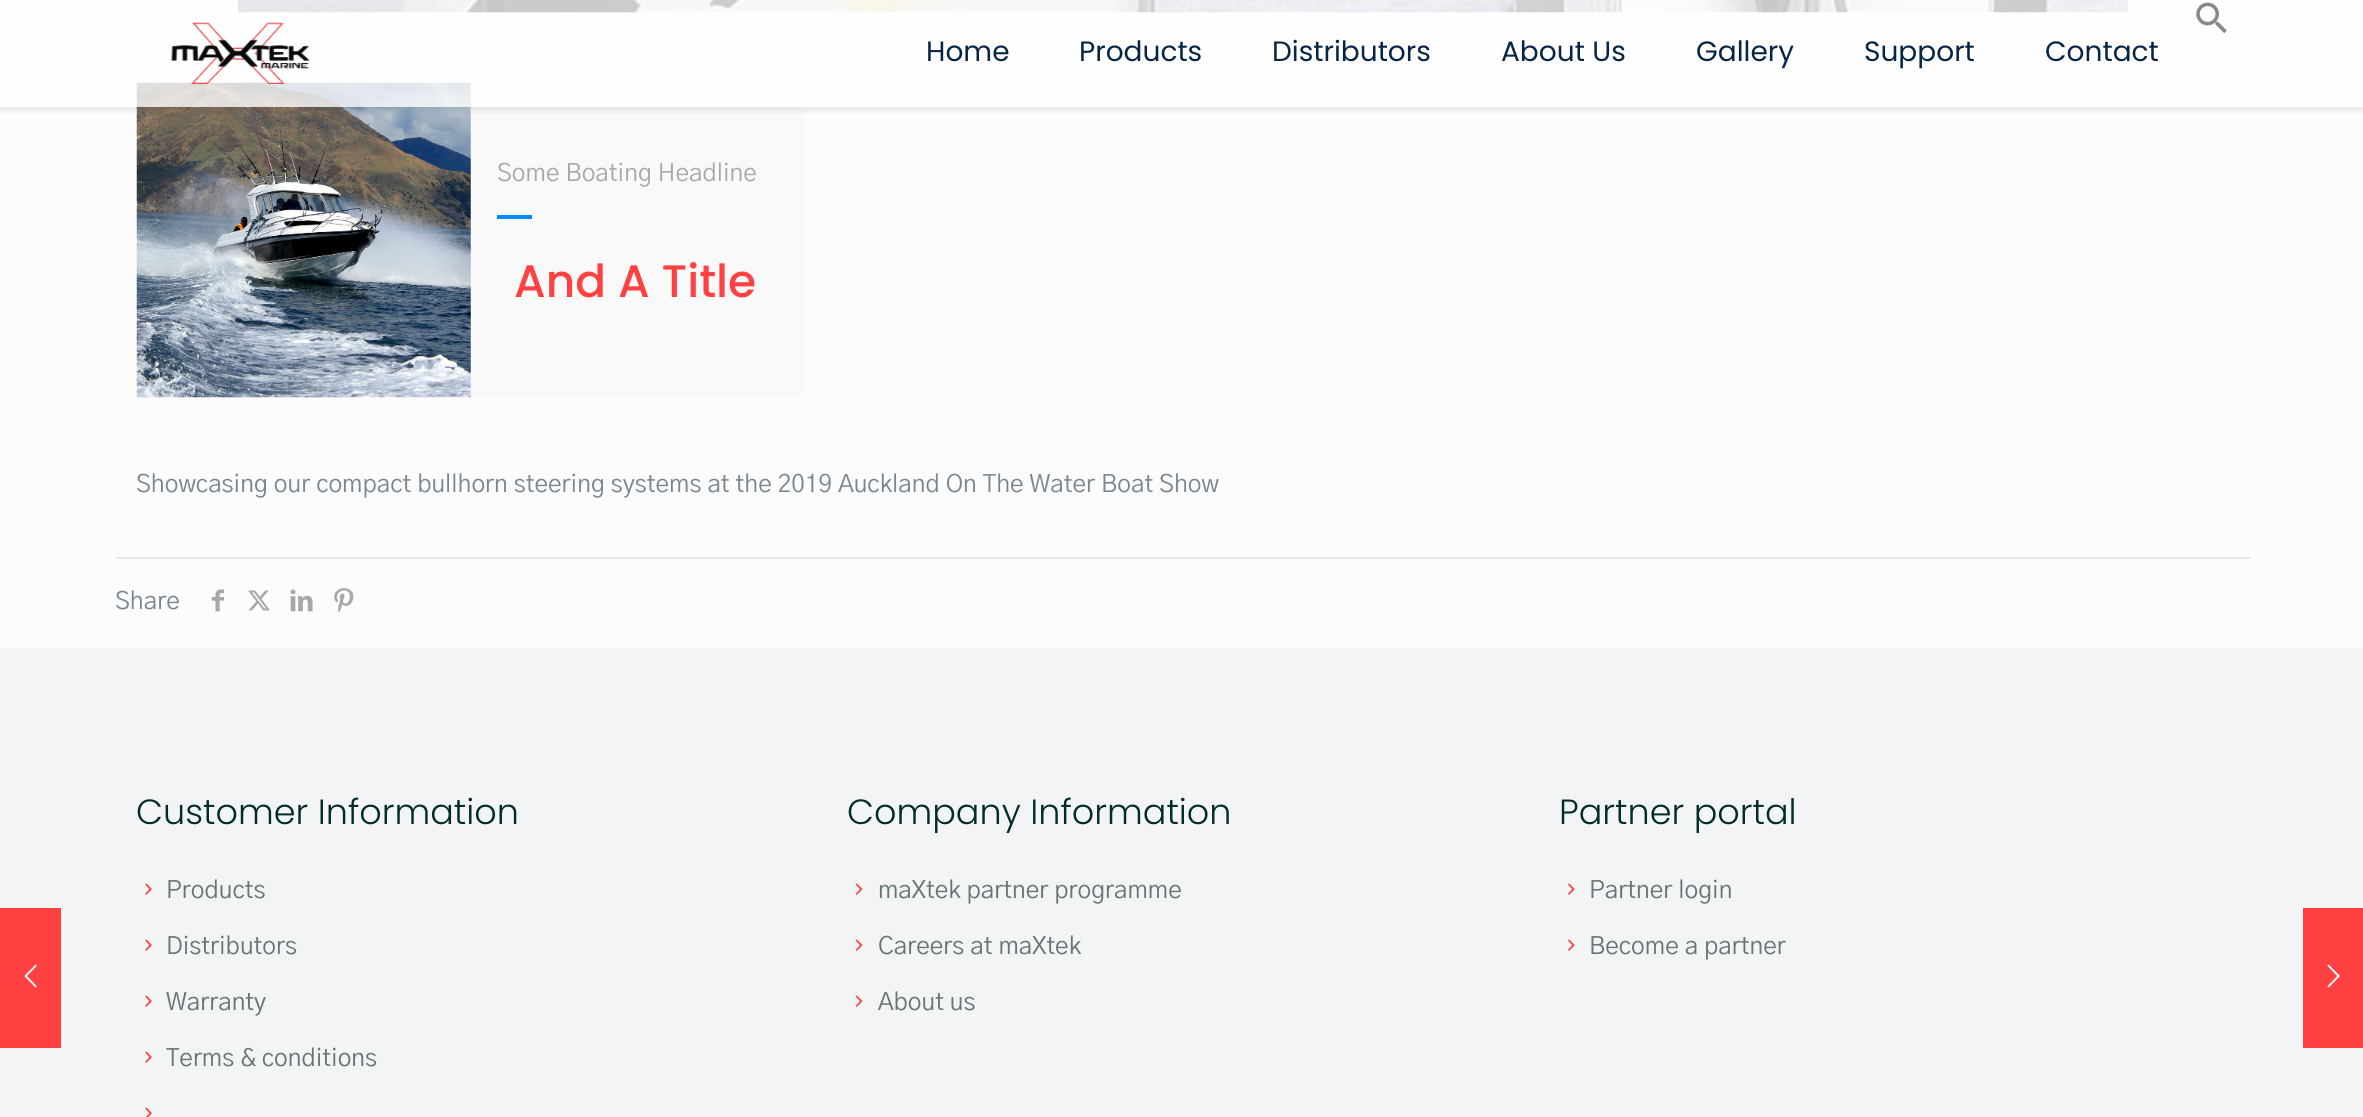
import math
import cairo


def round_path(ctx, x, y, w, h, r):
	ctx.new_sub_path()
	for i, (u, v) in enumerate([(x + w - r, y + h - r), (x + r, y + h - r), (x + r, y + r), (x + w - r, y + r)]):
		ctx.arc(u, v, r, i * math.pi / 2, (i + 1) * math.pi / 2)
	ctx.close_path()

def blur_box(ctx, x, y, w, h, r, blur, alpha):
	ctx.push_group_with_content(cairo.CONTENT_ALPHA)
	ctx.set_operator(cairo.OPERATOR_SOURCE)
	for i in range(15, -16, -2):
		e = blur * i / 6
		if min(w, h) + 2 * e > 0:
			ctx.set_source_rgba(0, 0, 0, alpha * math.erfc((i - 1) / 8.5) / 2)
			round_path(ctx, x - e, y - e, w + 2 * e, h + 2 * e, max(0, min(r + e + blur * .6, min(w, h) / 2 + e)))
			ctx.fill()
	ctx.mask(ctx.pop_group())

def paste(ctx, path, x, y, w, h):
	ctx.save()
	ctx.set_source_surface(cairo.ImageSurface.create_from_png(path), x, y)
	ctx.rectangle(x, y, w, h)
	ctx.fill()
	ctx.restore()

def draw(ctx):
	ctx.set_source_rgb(0.988, 0.988, 0.988)
	ctx.paint()
	ctx.set_source_rgb(0.949, 0.957, 0.961)
	ctx.rectangle(0, 648, 2363, 469)
	ctx.fill()
	ctx.set_source_rgb(1, 0.255, 0.255)
	ctx.rectangle(0, 908, 61, 140)
	ctx.fill()
	paste(ctx, 'media/1.png', 24, 964, 13, 24)
	ctx.set_source_rgb(0.973, 0.973, 0.973)
	ctx.rectangle(238, 12, 1890, 58)
	ctx.fill()
	paste(ctx, 'media/4.png', 238, 0, 1890, 13)
	paste(ctx, 'media/5.png', 136, 82, 335, 316)
	ctx.rectangle(471, 82, 334, 315)
	ctx.fill()
	ctx.save()
	ctx.rectangle(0, 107, 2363, 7)
	ctx.clip()
	ctx.set_source_rgb(0, 0, 0)
	blur_box(ctx, 0, 4, 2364, 106, 0, 4.5, 0.1)
	ctx.restore()
	ctx.set_source_rgba(1, 1, 1, 0.78)
	ctx.rectangle(0, 0, 2363, 107)
	ctx.fill()
	paste(ctx, 'media/2.png', 170, 22, 140, 62)
	paste(ctx, 'media/3.png', 2196, 2, 31, 32)
	ctx.select_font_face('Poppins')
	ctx.set_font_size(28)
	ctx.set_source_rgb(0.031, 0.149, 0.271)
	for x, y, s in [
		(926, 61, 'Home'),
		(1079, 61, 'Products'),
		(1272, 61, 'Distributors'),
		(1501, 61, 'About Us'),
		(1696, 61, 'Gallery'),
		(1864, 61, 'Support'),
		(2045, 61, 'Contact'),
	]:
		ctx.move_to(x, y)
		ctx.show_text(s)
	ctx.select_font_face('Gothic A1')
	ctx.set_font_size(24.5)
	ctx.set_source_rgb(0.659, 0.659, 0.659)
	ctx.move_to(497, 181)
	ctx.show_text('Some Boating Headline')
	ctx.set_source_rgb(0, 0.537, 0.969)
	ctx.rectangle(497, 215, 35, 4)
	ctx.fill()
	ctx.select_font_face('Poppins Medium')
	ctx.set_font_size(45.5)
	ctx.set_source_rgb(1, 0.255, 0.255)
	ctx.move_to(514, 297)
	ctx.show_text('And A Title')
	ctx.select_font_face('Gothic A1')
	ctx.set_font_size(24.5)
	ctx.set_source_rgb(0.471, 0.525, 0.565)
	ctx.move_to(136, 492)
	ctx.show_text('Showcasing our compact bullhorn steering systems at the 2019 Auckland On The Water Boat Show')
	ctx.set_source_rgb(0.91, 0.91, 0.91)
	ctx.rectangle(116, 557, 2135, 2)
	ctx.fill()
	ctx.set_source_rgb(0.471, 0.525, 0.565)
	ctx.move_to(115, 609)
	ctx.show_text('Share')
	paste(ctx, 'media/6.png', 211, 589, 13, 23)
	paste(ctx, 'media/7.png', 248, 590, 22, 21)
	paste(ctx, 'media/8.png', 290, 589, 23, 23)
	paste(ctx, 'media/9.png', 334, 588, 20, 25)
	ctx.select_font_face('Poppins Light')
	ctx.set_font_size(35)
	ctx.set_source_rgb(0.012, 0.173, 0.153)
	ctx.move_to(136, 824)
	ctx.show_text('Customer Information')
	paste(ctx, 'media/10.png', 145, 883, 7, 12)
	ctx.select_font_face('Gothic A1')
	ctx.set_font_size(24.5)
	ctx.set_source_rgb(0.404, 0.463, 0.455)
	ctx.move_to(166, 898)
	ctx.show_text('Products')
	paste(ctx, 'media/10.png', 145, 939, 7, 12)
	ctx.move_to(166, 954)
	ctx.show_text('Distributors')
	paste(ctx, 'media/10.png', 145, 995, 7, 12)
	ctx.move_to(166, 1010)
	ctx.show_text('Warranty')
	paste(ctx, 'media/10.png', 145, 1051, 7, 12)
	ctx.move_to(166, 1066)
	ctx.show_text('Terms & conditions')
	paste(ctx, 'media/11.png', 145, 1107, 7, 10)
	ctx.select_font_face('Poppins Light')
	ctx.set_font_size(35)
	ctx.set_source_rgb(0.012, 0.173, 0.153)
	ctx.move_to(847, 824)
	ctx.show_text('Company Information')
	paste(ctx, 'media/12.png', 855, 883, 8, 12)
	ctx.select_font_face('Gothic A1')
	ctx.set_font_size(24.5)
	ctx.set_source_rgb(0.404, 0.463, 0.455)
	ctx.move_to(878, 898)
	ctx.show_text('maXtek partner programme')
	paste(ctx, 'media/12.png', 855, 939, 8, 12)
	ctx.move_to(878, 954)
	ctx.show_text('Careers at maXtek')
	paste(ctx, 'media/12.png', 855, 995, 8, 12)
	ctx.move_to(878, 1010)
	ctx.show_text('About us')
	ctx.select_font_face('Poppins Light')
	ctx.set_font_size(35)
	ctx.set_source_rgb(0.012, 0.173, 0.153)
	ctx.move_to(1559, 824)
	ctx.show_text('Partner portal')
	paste(ctx, 'media/13.png', 1568, 883, 7, 12)
	ctx.select_font_face('Gothic A1')
	ctx.set_font_size(24.5)
	ctx.set_source_rgb(0.404, 0.463, 0.455)
	ctx.move_to(1589, 898)
	ctx.show_text('Partner login')
	paste(ctx, 'media/13.png', 1568, 939, 7, 12)
	ctx.move_to(1589, 954)
	ctx.show_text('Become a partner')
	ctx.set_source_rgb(1, 0.255, 0.255)
	ctx.rectangle(2303, 908, 60, 140)
	ctx.fill()
	paste(ctx, 'media/14.png', 2327, 964, 13, 24)


surface = cairo.ImageSurface(cairo.FORMAT_RGB24, 2363, 1117)
ctx = cairo.Context(surface)
options = cairo.FontOptions()
options.set_hint_metrics(cairo.HINT_METRICS_OFF)
options.set_hint_style(cairo.HINT_STYLE_NONE)
ctx.set_font_options(options)
ctx.set_miter_limit(4)
draw(ctx)
surface.write_to_png('image.png')
